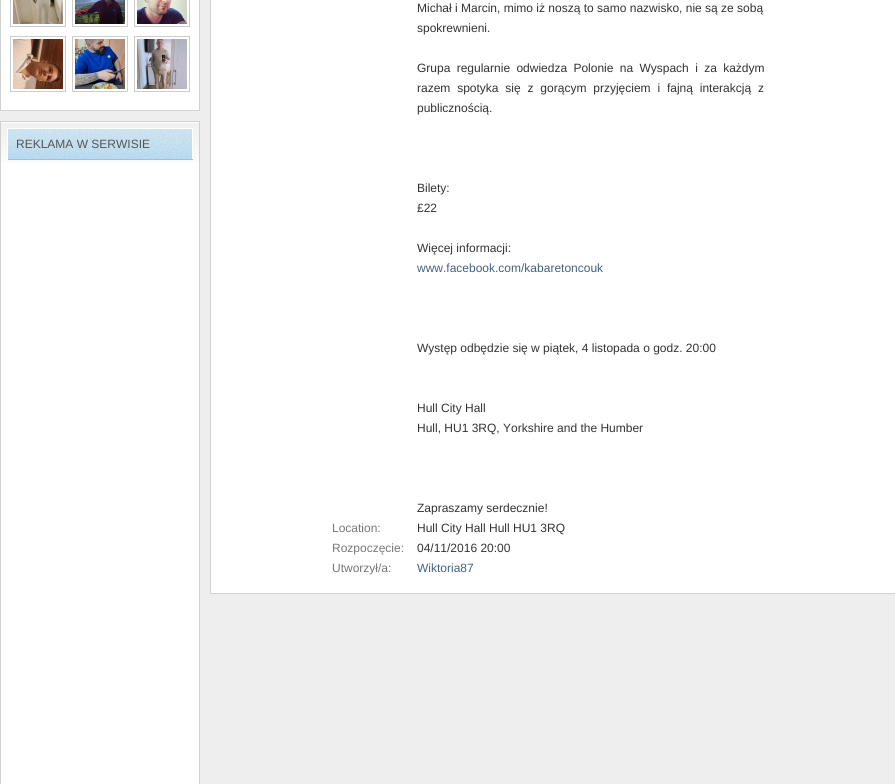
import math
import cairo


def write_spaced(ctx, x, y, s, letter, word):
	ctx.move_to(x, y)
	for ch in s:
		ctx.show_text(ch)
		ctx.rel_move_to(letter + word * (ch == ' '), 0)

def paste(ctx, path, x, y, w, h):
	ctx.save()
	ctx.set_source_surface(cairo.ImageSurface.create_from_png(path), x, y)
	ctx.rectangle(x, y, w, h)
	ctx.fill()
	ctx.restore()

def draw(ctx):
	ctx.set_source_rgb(0.933, 0.933, 0.933)
	ctx.paint()
	ctx.set_source_rgb(1, 1, 1)
	ctx.rectangle(0.5, -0.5, 199, 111)
	ctx.fill_preserve()
	ctx.set_source_rgb(0.82, 0.82, 0.82)
	ctx.set_line_width(1)
	ctx.stroke()
	ctx.rectangle(10.5, -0.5, 55, 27)
	ctx.set_source_rgb(0.8, 0.8, 0.8)
	ctx.stroke()
	paste(ctx, 'media/1.png', 13, 0, 50, 24)
	ctx.rectangle(72.5, -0.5, 55, 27)
	ctx.stroke()
	paste(ctx, 'media/2.png', 75, 0, 50, 24)
	ctx.rectangle(134.5, -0.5, 55, 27)
	ctx.stroke()
	paste(ctx, 'media/3.png', 137, 0, 50, 24)
	ctx.rectangle(10.5, 36.5, 55, 55)
	ctx.stroke()
	paste(ctx, 'media/4.png', 13, 39, 50, 50)
	ctx.rectangle(72.5, 36.5, 55, 55)
	ctx.stroke()
	paste(ctx, 'media/5.png', 75, 39, 50, 50)
	ctx.rectangle(134.5, 36.5, 55, 55)
	ctx.stroke()
	paste(ctx, 'media/6.png', 137, 39, 50, 50)
	ctx.set_source_rgb(1, 1, 1)
	ctx.rectangle(1, 122, 198, 662)
	ctx.fill()
	paste(ctx, 'media/7.png', 1, 123, 198, 40)
	ctx.rectangle(0.5, 121.5, 199, 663)
	ctx.set_source_rgb(0.82, 0.82, 0.82)
	ctx.stroke()
	paste(ctx, 'media/8.png', 8, 129, 184, 30)
	ctx.set_source_rgb(1, 1, 1)
	ctx.rectangle(7, 128, 186, 1)
	ctx.rectangle(192, 128, 1, 32)
	ctx.fill()
	ctx.set_source_rgb(0.635, 0.753, 0.851)
	ctx.rectangle(7, 159, 186, 1)
	ctx.fill()
	ctx.set_source_rgb(1, 1, 1)
	ctx.rectangle(7, 128, 1, 32)
	ctx.fill()
	ctx.select_font_face('Liberation Sans')
	ctx.set_font_size(12)
	ctx.set_source_rgb(0.333, 0.333, 0.333)
	ctx.move_to(16, 148)
	ctx.show_text('REKLAMA W SERWISIE')
	ctx.set_source_rgb(1, 1, 1)
	ctx.rectangle(210.5, -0.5, 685, 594)
	ctx.fill_preserve()
	ctx.set_source_rgb(0.82, 0.82, 0.82)
	ctx.stroke()
	ctx.set_source_rgb(0.2, 0.2, 0.2)
	ctx.move_to(417, 12)
	ctx.show_text('Michał i Marcin, mimo iż noszą to samo nazwisko, nie są ze sobą')
	ctx.move_to(417, 32)
	ctx.show_text('spokrewnieni.')
	write_spaced(ctx, 417, 72, 'Grupa regularnie odwiedza Polonie na Wyspach i za każdym', 0, 3)
	write_spaced(ctx, 417, 92, 'razem spotyka się z gorącym przyjęciem i fajną interakcją z', 0, 3.5)
	for x, y, s in [
		(417, 112, 'publicznością.'),
		(417, 192, 'Bilety:'),
		(417, 212, '£22'),
		(417, 252, 'Więcej informacji:'),
	]:
		ctx.move_to(x, y)
		ctx.show_text(s)
	ctx.set_source_rgb(0.263, 0.376, 0.51)
	ctx.move_to(417, 272)
	ctx.show_text('www.facebook.com/kabaretoncouk')
	ctx.set_source_rgb(0.2, 0.2, 0.2)
	for x, y, s in [
		(417, 352, 'Występ odbędzie się w piątek, 4 listopada o godz. 20:00'),
		(417, 412, 'Hull City Hall'),
		(417, 432, 'Hull, HU1 3RQ, Yorkshire and the Humber'),
		(417, 512, 'Zapraszamy serdecznie!'),
	]:
		ctx.move_to(x, y)
		ctx.show_text(s)
	ctx.set_source_rgb(0.467, 0.467, 0.467)
	ctx.move_to(332, 532)
	ctx.show_text('Location:')
	ctx.set_source_rgb(0.2, 0.2, 0.2)
	ctx.move_to(417, 532)
	ctx.show_text('Hull City Hall Hull HU1 3RQ')
	ctx.set_source_rgb(0.467, 0.467, 0.467)
	ctx.move_to(332, 552)
	ctx.show_text('Rozpoczęcie:')
	ctx.set_source_rgb(0.2, 0.2, 0.2)
	ctx.move_to(417, 552)
	ctx.show_text('04/11/2016 20:00')
	ctx.set_source_rgb(0.467, 0.467, 0.467)
	ctx.move_to(332, 572)
	ctx.show_text('Utworzył/a:')
	ctx.set_source_rgb(0.263, 0.376, 0.51)
	ctx.move_to(417, 572)
	ctx.show_text('Wiktoria87')


surface = cairo.ImageSurface(cairo.FORMAT_RGB24, 895, 784)
ctx = cairo.Context(surface)
options = cairo.FontOptions()
options.set_hint_metrics(cairo.HINT_METRICS_OFF)
options.set_hint_style(cairo.HINT_STYLE_NONE)
ctx.set_font_options(options)
ctx.set_miter_limit(4)
draw(ctx)
surface.write_to_png('image.png')
